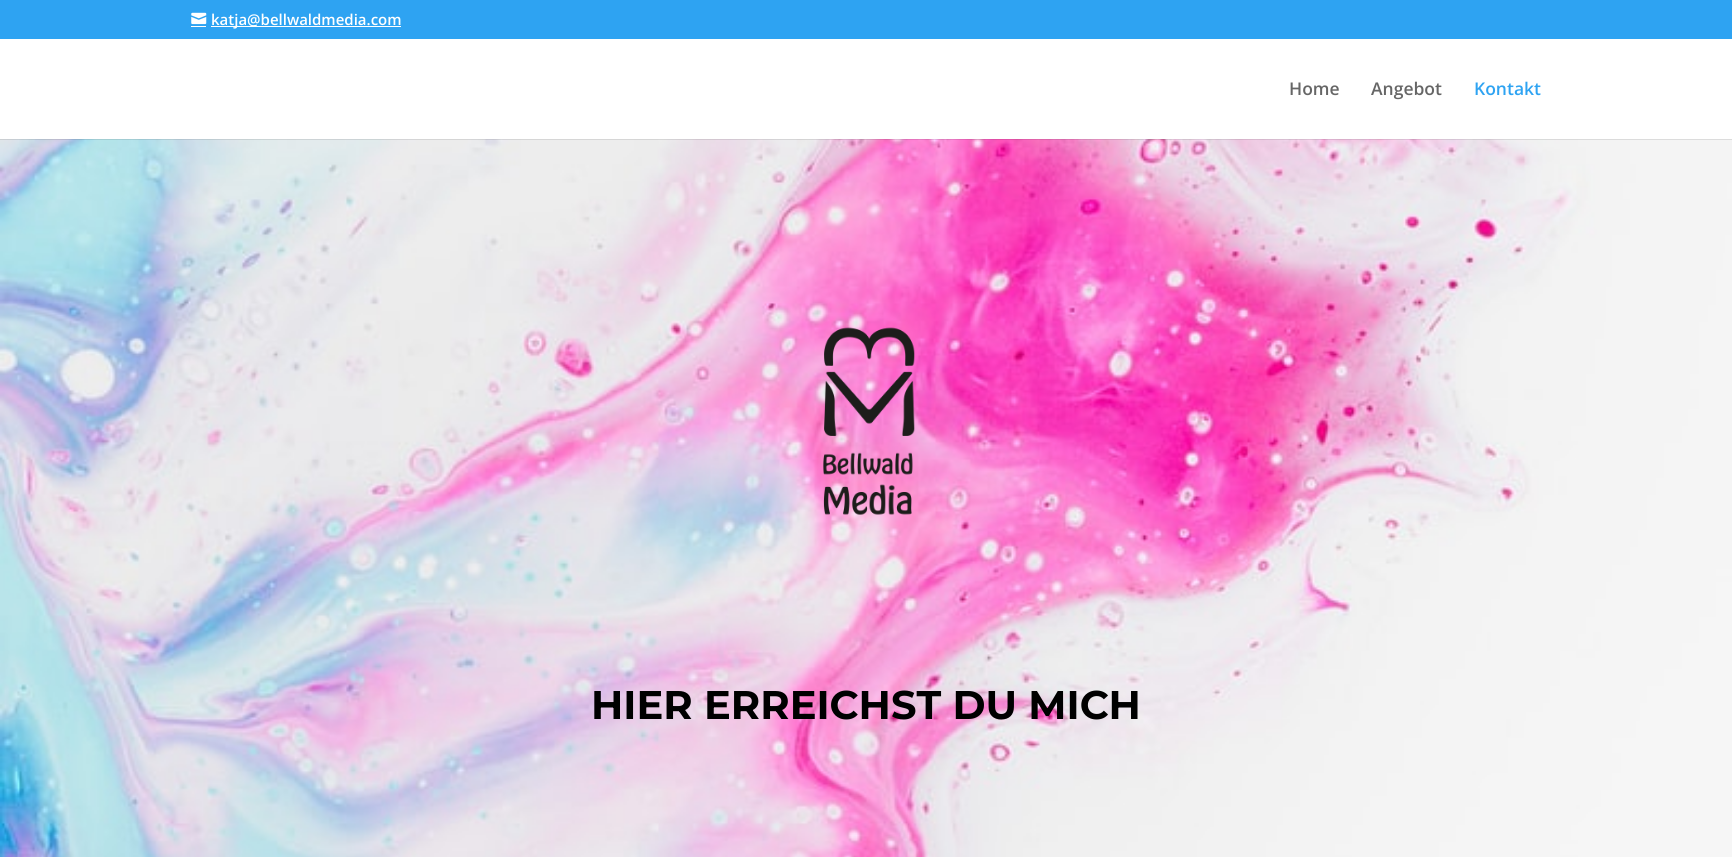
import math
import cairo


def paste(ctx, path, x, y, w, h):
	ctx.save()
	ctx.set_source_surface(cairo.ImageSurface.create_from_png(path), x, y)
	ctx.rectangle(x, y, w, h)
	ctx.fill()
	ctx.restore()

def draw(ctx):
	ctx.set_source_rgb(1, 1, 1)
	ctx.paint()
	ctx.set_source_rgb(0.18, 0.639, 0.949)
	ctx.rectangle(0, 0, 1732, 39)
	ctx.fill()
	paste(ctx, 'media/1.png', 191, 12, 16, 13)
	ctx.set_source_rgb(1, 1, 1)
	ctx.rectangle(211, 26, 190, 1)
	ctx.fill()
	ctx.select_font_face('Open Sans SemiBold')
	ctx.set_font_size(15)
	ctx.move_to(211, 25)
	ctx.show_text('katja@bellwaldmedia.com')
	ctx.rectangle(191, 26, 15, 1)
	ctx.fill()
	paste(ctx, 'media/2.png', 0, 139, 1732, 718)
	ctx.set_source_rgba(0, 0, 0, 0.1)
	ctx.new_path()
	ctx.move_to(0, 139)
	ctx.line_to(0, 140)
	ctx.line_to(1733, 140)
	ctx.line_to(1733, 40)
	ctx.line_to(1732, 40)
	ctx.line_to(1732, 139)
	ctx.close_path()
	ctx.fill()
	ctx.set_font_size(17.5)
	ctx.set_source_rgb(0.4, 0.4, 0.4)
	ctx.move_to(1289, 95)
	ctx.show_text('Home')
	ctx.move_to(1371, 95)
	ctx.show_text('Angebot')
	ctx.set_source_rgb(0.18, 0.639, 0.949)
	ctx.move_to(1474, 95)
	ctx.show_text('Kontakt')
	paste(ctx, 'media/3.png', 823, 327, 92, 188)
	ctx.select_font_face('Montserrat', cairo.FONT_SLANT_NORMAL, cairo.FONT_WEIGHT_BOLD)
	ctx.set_font_size(40)
	ctx.set_source_rgb(0, 0, 0)
	ctx.move_to(591, 719)
	ctx.show_text('HIER ERREICHST DU MICH')


surface = cairo.ImageSurface(cairo.FORMAT_RGB24, 1732, 857)
ctx = cairo.Context(surface)
options = cairo.FontOptions()
options.set_hint_metrics(cairo.HINT_METRICS_OFF)
options.set_hint_style(cairo.HINT_STYLE_NONE)
ctx.set_font_options(options)
ctx.set_miter_limit(4)
draw(ctx)
surface.write_to_png('image.png')
